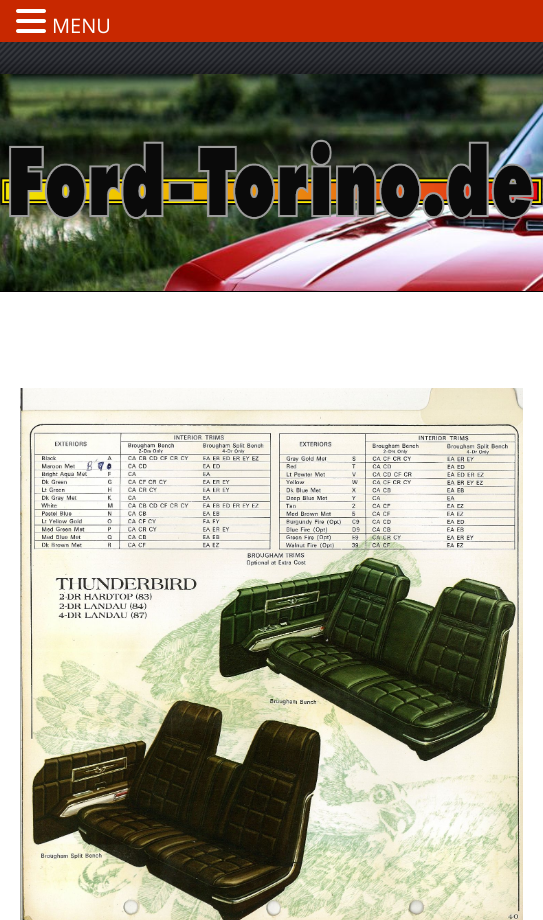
import math
import cairo


def round_path(ctx, x, y, w, h, r):
	ctx.new_sub_path()
	for i, (u, v) in enumerate([(x + w - r, y + h - r), (x + r, y + h - r), (x + r, y + r), (x + w - r, y + r)]):
		ctx.arc(u, v, r, i * math.pi / 2, (i + 1) * math.pi / 2)
	ctx.close_path()

def blur_box(ctx, x, y, w, h, r, blur, alpha):
	ctx.push_group_with_content(cairo.CONTENT_ALPHA)
	ctx.set_operator(cairo.OPERATOR_SOURCE)
	for i in range(15, -16, -2):
		e = blur * i / 6
		if min(w, h) + 2 * e > 0:
			ctx.set_source_rgba(0, 0, 0, alpha * math.erfc((i - 1) / 8.5) / 2)
			round_path(ctx, x - e, y - e, w + 2 * e, h + 2 * e, max(0, min(r + e + blur * .6, min(w, h) / 2 + e)))
			ctx.fill()
	ctx.mask(ctx.pop_group())

def paste(ctx, path, x, y, w, h):
	ctx.save()
	ctx.set_source_surface(cairo.ImageSurface.create_from_png(path), x, y)
	ctx.rectangle(x, y, w, h)
	ctx.fill()
	ctx.restore()

def draw(ctx):
	ctx.set_source_rgb(1, 1, 1)
	ctx.paint()
	paste(ctx, 'media/1.png', 0, 42, 543, 32)
	ctx.set_source_rgb(0, 0, 0)
	blur_box(ctx, -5, 69, 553, 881, 0, 10, 0.5)
	ctx.set_source_rgb(0.784, 0.157, 0)
	ctx.rectangle(0, 0, 543, 42)
	ctx.fill()
	ctx.set_source_rgb(1, 1, 1)
	round_path(ctx, 16, 9, 30, 4, 2)
	ctx.fill()
	round_path(ctx, 16, 19, 30, 4, 2)
	ctx.fill()
	round_path(ctx, 16, 29, 30, 4, 2)
	ctx.fill()
	ctx.select_font_face('Open Sans')
	ctx.set_font_size(20)
	ctx.move_to(52, 33)
	ctx.show_text('MENU')
	paste(ctx, 'media/2.png', 0, 74, 543, 217)
	paste(ctx, 'media/3.png', 0, 139, 543, 81)
	ctx.set_source_rgb(0, 0, 0)
	ctx.rectangle(0, 291, 543, 1)
	ctx.fill()
	ctx.set_source_rgb(1, 1, 1)
	ctx.rectangle(0, 292, 543, 628)
	ctx.fill()
	paste(ctx, 'media/4.png', 20, 388, 503, 532)


surface = cairo.ImageSurface(cairo.FORMAT_RGB24, 543, 920)
ctx = cairo.Context(surface)
options = cairo.FontOptions()
options.set_hint_metrics(cairo.HINT_METRICS_OFF)
options.set_hint_style(cairo.HINT_STYLE_NONE)
ctx.set_font_options(options)
ctx.set_miter_limit(4)
draw(ctx)
surface.write_to_png('image.png')
